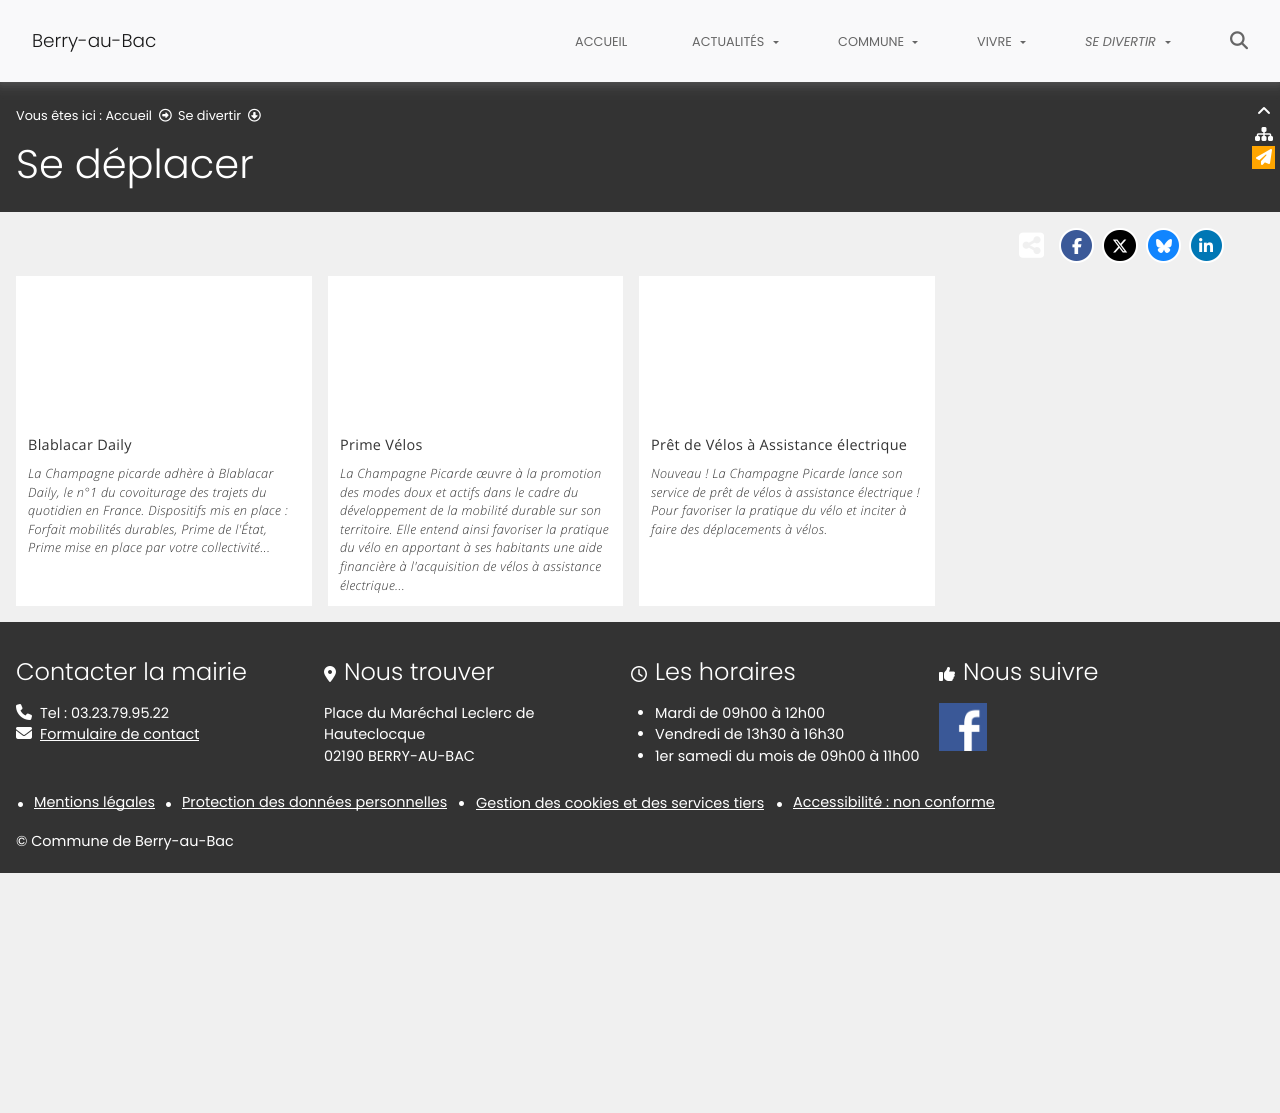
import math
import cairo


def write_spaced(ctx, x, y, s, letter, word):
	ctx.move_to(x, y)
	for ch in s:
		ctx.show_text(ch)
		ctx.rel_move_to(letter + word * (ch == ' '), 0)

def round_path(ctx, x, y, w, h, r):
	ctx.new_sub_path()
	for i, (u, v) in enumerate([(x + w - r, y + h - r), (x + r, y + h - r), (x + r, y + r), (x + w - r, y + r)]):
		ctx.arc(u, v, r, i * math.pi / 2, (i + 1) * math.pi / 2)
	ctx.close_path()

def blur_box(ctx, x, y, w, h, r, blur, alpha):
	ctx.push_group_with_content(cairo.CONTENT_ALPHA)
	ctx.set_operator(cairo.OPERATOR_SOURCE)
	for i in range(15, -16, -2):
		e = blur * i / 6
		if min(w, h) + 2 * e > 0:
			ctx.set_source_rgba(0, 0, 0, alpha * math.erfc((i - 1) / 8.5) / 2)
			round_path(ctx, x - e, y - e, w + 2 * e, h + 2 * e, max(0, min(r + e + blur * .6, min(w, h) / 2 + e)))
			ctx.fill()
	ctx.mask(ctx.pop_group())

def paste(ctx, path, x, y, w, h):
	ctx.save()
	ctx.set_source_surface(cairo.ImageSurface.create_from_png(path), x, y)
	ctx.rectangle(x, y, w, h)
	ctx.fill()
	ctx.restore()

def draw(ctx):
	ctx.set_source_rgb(0.941, 0.941, 0.941)
	ctx.paint()
	ctx.set_source_rgb(0.2, 0.2, 0.2)
	ctx.rectangle(0, 82, 1280, 130)
	ctx.fill()
	ctx.set_source_rgb(0.4, 0.4, 0.4)
	blur_box(ctx, 0, 0, 1280, 82, 0, 7.5, 1)
	ctx.set_source_rgb(0.973, 0.976, 0.98)
	ctx.rectangle(0, 0, 1280, 82)
	ctx.fill()
	ctx.select_font_face('Poppins Light')
	ctx.set_font_size(18.5)
	ctx.set_source_rgb(0.098, 0.098, 0.098)
	ctx.move_to(32, 47)
	ctx.show_text('Berry-au-Bac')
	ctx.select_font_face('Poppins')
	ctx.set_font_size(12.8)
	ctx.set_source_rgb(0.4, 0.4, 0.4)
	ctx.move_to(575, 46)
	ctx.show_text('ACCUEIL')
	ctx.move_to(692, 46)
	ctx.show_text('ACTUALITÉS')
	ctx.new_path()
	ctx.move_to(773, 41)
	ctx.line_to(779, 41)
	ctx.line_to(776, 44)
	ctx.close_path()
	ctx.fill()
	ctx.move_to(838, 46)
	ctx.show_text('COMMUNE')
	ctx.new_path()
	ctx.move_to(912, 41)
	ctx.line_to(918, 41)
	ctx.line_to(915, 44)
	ctx.close_path()
	ctx.fill()
	ctx.move_to(977, 46)
	ctx.show_text('VIVRE')
	ctx.new_path()
	ctx.move_to(1020, 41)
	ctx.line_to(1026, 41)
	ctx.line_to(1023, 44)
	ctx.close_path()
	ctx.fill()
	ctx.select_font_face('Poppins', cairo.FONT_SLANT_ITALIC)
	ctx.move_to(1085, 46)
	ctx.show_text('SE DIVERTIR')
	ctx.new_path()
	ctx.move_to(1165, 41)
	ctx.line_to(1171, 41)
	ctx.line_to(1168, 44)
	ctx.close_path()
	ctx.fill()
	paste(ctx, 'media/1.png', 1230, 31, 18, 19)
	ctx.select_font_face('Poppins')
	ctx.set_source_rgb(1, 1, 1)
	ctx.move_to(16, 120)
	ctx.show_text('Vous êtes ici : Accueil')
	paste(ctx, 'media/2.png', 159, 108, 13, 14)
	ctx.move_to(178, 120)
	ctx.show_text('Se divertir')
	paste(ctx, 'media/3.png', 248, 108, 13, 14)
	ctx.select_font_face('Poppins Light')
	ctx.set_font_size(40)
	ctx.move_to(16, 178)
	ctx.show_text('Se déplacer')
	paste(ctx, 'media/4.png', 1019, 232, 25, 26)
	ctx.set_source_rgb(0.231, 0.349, 0.596)
	ctx.arc(1076.5, 245.5, 16.5, 0, 2 * math.pi)
	ctx.fill_preserve()
	ctx.set_source_rgb(1, 1, 1)
	ctx.stroke()
	paste(ctx, 'media/5.png', 1072, 238, 10, 16)
	ctx.set_source_rgb(0, 0, 0)
	round_path(ctx, 1103, 229, 34, 33, 16.5)
	ctx.fill_preserve()
	ctx.set_source_rgb(1, 1, 1)
	ctx.stroke()
	paste(ctx, 'media/6.png', 1113, 239, 15, 14)
	ctx.set_source_rgb(0.067, 0.522, 0.996)
	ctx.arc(1163.5, 245.5, 16.5, 0, 2 * math.pi)
	ctx.fill_preserve()
	ctx.set_source_rgb(1, 1, 1)
	ctx.stroke()
	paste(ctx, 'media/7.png', 1156, 239, 16, 14)
	ctx.set_source_rgb(0, 0.467, 0.71)
	ctx.arc(1206.5, 245.5, 16.5, 0, 2 * math.pi)
	ctx.fill_preserve()
	ctx.set_source_rgb(1, 1, 1)
	ctx.stroke()
	paste(ctx, 'media/8.png', 1199, 238, 14, 14)
	paste(ctx, 'media/9.png', 1258, 107, 12, 7)
	paste(ctx, 'media/10.png', 1255, 127, 18, 14)
	ctx.set_source_rgb(1, 0.647, 0)
	ctx.rectangle(1252, 146, 23, 23)
	ctx.fill()
	paste(ctx, 'media/11.png', 1256, 149, 16, 16)
	ctx.set_source_rgb(1, 1, 1)
	ctx.rectangle(16, 276, 296, 330)
	ctx.fill()
	ctx.select_font_face('Open Sans')
	ctx.set_font_size(14.4)
	ctx.set_source_rgb(0.2, 0.2, 0.2)
	write_spaced(ctx, 28, 450, 'Blablacar Daily', 0.32, 0)
	ctx.select_font_face('Open Sans Light', cairo.FONT_SLANT_ITALIC)
	ctx.set_font_size(12.8)
	for x, y, s in [
		(28, 478, 'La Champagne picarde adhère à Blablacar'),
		(28, 497, 'Daily, le n°1 du covoiturage des trajets du'),
		(28, 515, 'quotidien en France. Dispositifs mis en place :'),
		(28, 534, 'Forfait mobilités durables, Prime de l\'État,'),
		(28, 552, 'Prime mise en place par votre collectivité...'),
	]:
		write_spaced(ctx, x, y, s, 0.32, 0)
	ctx.set_source_rgb(1, 1, 1)
	ctx.rectangle(328, 276, 295, 330)
	ctx.fill()
	ctx.select_font_face('Open Sans')
	ctx.set_font_size(14.4)
	ctx.set_source_rgb(0.2, 0.2, 0.2)
	write_spaced(ctx, 340, 450, 'Prime Vélos', 0.32, 0)
	ctx.select_font_face('Open Sans Light', cairo.FONT_SLANT_ITALIC)
	ctx.set_font_size(12.8)
	for x, y, s in [
		(340, 478, 'La Champagne Picarde œuvre à la promotion'),
		(340, 497, 'des modes doux et actifs dans le cadre du'),
		(340, 515, 'développement de la mobilité durable sur son'),
		(340, 534, 'territoire. Elle entend ainsi favoriser la pratique'),
		(340, 552, 'du vélo en apportant à ses habitants une aide'),
		(340, 571, 'financière à l\'acquisition de vélos à assistance'),
		(340, 590, 'électrique...'),
	]:
		write_spaced(ctx, x, y, s, 0.32, 0)
	ctx.set_source_rgb(1, 1, 1)
	ctx.rectangle(639, 276, 296, 330)
	ctx.fill()
	ctx.select_font_face('Open Sans')
	ctx.set_font_size(14.4)
	ctx.set_source_rgb(0.2, 0.2, 0.2)
	write_spaced(ctx, 651, 450, 'Prêt de Vélos à Assistance électrique', 0.32, 0)
	ctx.select_font_face('Open Sans Light', cairo.FONT_SLANT_ITALIC)
	ctx.set_font_size(12.8)
	for x, y, s in [
		(651, 478, 'Nouveau ! La Champagne Picarde lance son'),
		(651, 497, 'service de prêt de vélos à assistance électrique !'),
		(651, 515, 'Pour favoriser la pratique du vélo et inciter à'),
		(651, 534, 'faire des déplacements à vélos.'),
	]:
		write_spaced(ctx, x, y, s, 0.32, 0)
	ctx.rectangle(0, 622, 1280, 251)
	ctx.fill()
	ctx.select_font_face('Poppins Light')
	ctx.set_font_size(24)
	ctx.set_source_rgb(1, 1, 1)
	ctx.move_to(16, 680)
	ctx.show_text('Contacter la mairie')
	paste(ctx, 'media/12.png', 16, 704, 16, 16)
	ctx.select_font_face('Poppins')
	ctx.set_font_size(14.4)
	ctx.move_to(40, 718)
	ctx.show_text('Tel : 03.23.79.95.22')
	paste(ctx, 'media/13.png', 16, 727, 16, 12)
	ctx.move_to(40, 739)
	ctx.show_text('Formulaire de contact')
	ctx.rectangle(40, 740, 159, 1)
	ctx.fill()
	paste(ctx, 'media/14.png', 324, 666, 12, 16)
	ctx.select_font_face('Poppins Light')
	ctx.set_font_size(24)
	ctx.move_to(344, 680)
	ctx.show_text('Nous trouver')
	ctx.select_font_face('Poppins')
	ctx.set_font_size(14.4)
	for x, y, s in [
		(324, 718, 'Place du Maréchal Leclerc de'),
		(324, 739, 'Hauteclocque'),
		(324, 761, '02190 BERRY-AU-BAC'),
	]:
		ctx.move_to(x, y)
		ctx.show_text(s)
	paste(ctx, 'media/15.png', 631, 666, 16, 16)
	ctx.select_font_face('Poppins Light')
	ctx.set_font_size(24)
	ctx.move_to(655, 680)
	ctx.show_text('Les horaires')
	ctx.new_path()
	ctx.arc(640.5, 712.5, 2.5, 0, 2 * math.pi)
	ctx.fill()
	ctx.select_font_face('Poppins')
	ctx.set_font_size(14.4)
	ctx.move_to(655, 718)
	ctx.show_text('Mardi de 09h00 à 12h00')
	ctx.new_path()
	ctx.arc(640.5, 733.5, 2.5, 0, 2 * math.pi)
	ctx.fill()
	ctx.move_to(655, 739)
	ctx.show_text('Vendredi de 13h30 à 16h30')
	ctx.new_path()
	ctx.arc(640.5, 755.5, 2.5, 0, 2 * math.pi)
	ctx.fill()
	ctx.move_to(655, 761)
	ctx.show_text('1er samedi du mois de 09h00 à 11h00')
	paste(ctx, 'media/16.png', 939, 667, 16, 14)
	ctx.select_font_face('Poppins Light')
	ctx.set_font_size(24)
	ctx.move_to(963, 680)
	ctx.show_text('Nous suivre')
	paste(ctx, 'media/17.png', 939, 703, 48, 48)
	ctx.arc(20.5, 804.5, 2.5, 0, 2 * math.pi)
	ctx.fill()
	ctx.rectangle(34, 808, 121, 1)
	ctx.fill()
	ctx.select_font_face('Poppins')
	ctx.set_font_size(14.4)
	ctx.move_to(34, 807)
	ctx.show_text('Mentions légales')
	ctx.new_path()
	ctx.arc(168.5, 804.5, 2.5, 0, 2 * math.pi)
	ctx.fill()
	ctx.rectangle(182, 808, 265, 1)
	ctx.fill()
	ctx.move_to(182, 807)
	ctx.show_text('Protection des données personnelles')
	ctx.new_path()
	ctx.arc(461.5, 803.5, 2.5, 0, 2 * math.pi)
	ctx.fill()
	ctx.move_to(476, 808)
	ctx.show_text('Gestion des cookies et des services tiers')
	ctx.rectangle(476, 809, 288, 1)
	ctx.fill()
	ctx.arc(779.5, 804.5, 2.5, 0, 2 * math.pi)
	ctx.fill()
	ctx.move_to(793, 807)
	ctx.show_text('Accessibilité : non conforme')
	ctx.rectangle(793, 808, 202, 1)
	ctx.fill()
	ctx.move_to(16, 846)
	ctx.show_text('© Commune de Berry-au-Bac')


surface = cairo.ImageSurface(cairo.FORMAT_RGB24, 1280, 1113)
ctx = cairo.Context(surface)
options = cairo.FontOptions()
options.set_hint_metrics(cairo.HINT_METRICS_OFF)
options.set_hint_style(cairo.HINT_STYLE_NONE)
ctx.set_font_options(options)
ctx.set_miter_limit(4)
draw(ctx)
surface.write_to_png('image.png')
